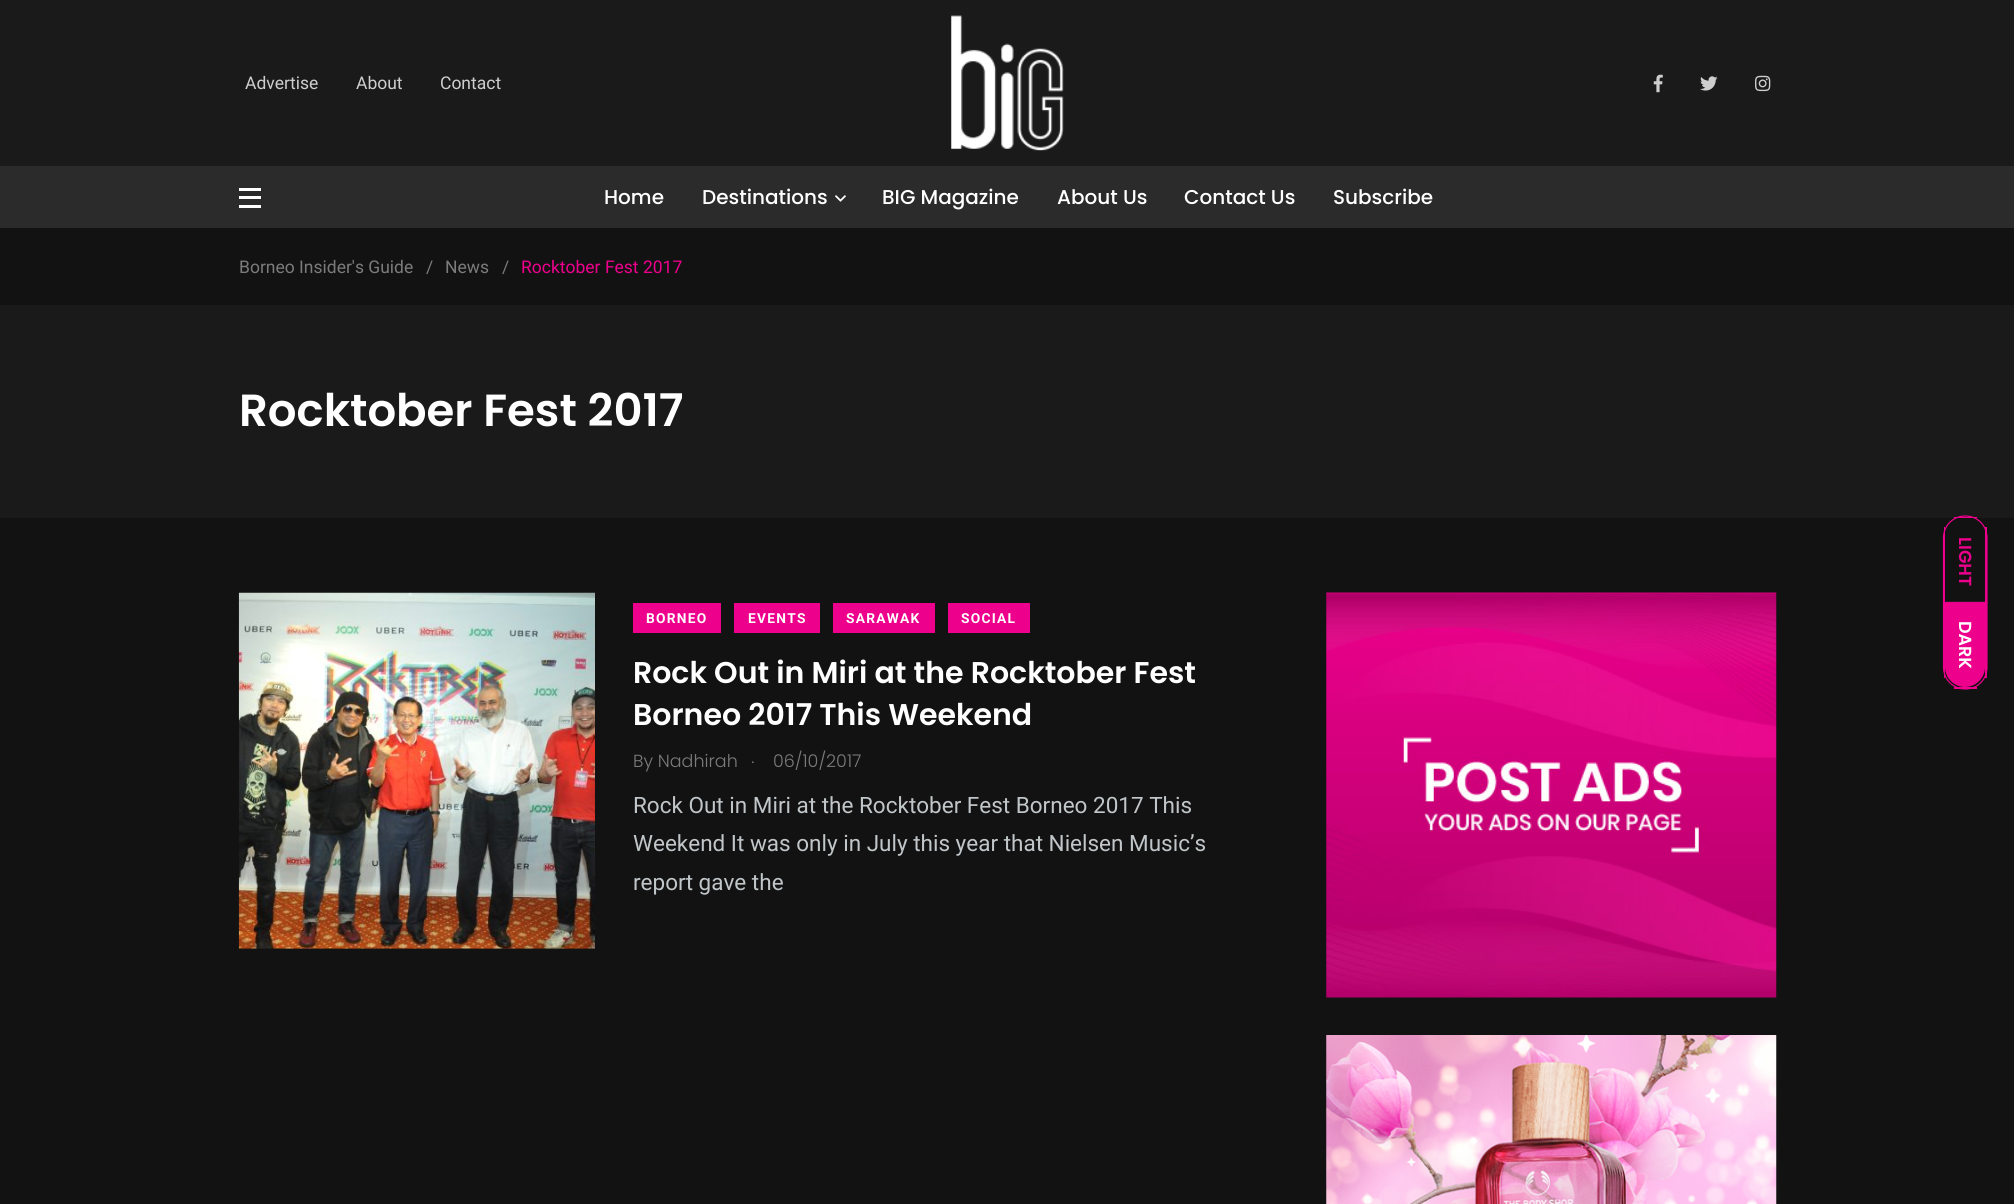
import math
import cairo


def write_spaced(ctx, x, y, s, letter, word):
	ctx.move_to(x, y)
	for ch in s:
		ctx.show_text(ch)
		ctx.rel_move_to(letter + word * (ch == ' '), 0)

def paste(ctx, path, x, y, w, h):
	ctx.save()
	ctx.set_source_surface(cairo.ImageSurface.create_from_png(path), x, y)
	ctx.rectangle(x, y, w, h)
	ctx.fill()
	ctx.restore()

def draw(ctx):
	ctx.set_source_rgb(0.071, 0.071, 0.075)
	ctx.paint()
	ctx.set_source_rgb(0.102, 0.102, 0.102)
	ctx.rectangle(0, 0, 2014, 166)
	ctx.fill()
	ctx.select_font_face('Roboto')
	ctx.set_font_size(17.5)
	ctx.set_source_rgb(0.808, 0.808, 0.808)
	for x, y, s in [
		(245, 89, 'Advertise'),
		(356, 89, 'About'),
		(440, 89, 'Contact'),
	]:
		ctx.move_to(x, y)
		ctx.show_text(s)
	paste(ctx, 'media/1.png', 951, 15, 113, 136)
	paste(ctx, 'media/2.png', 1653, 74, 10, 19)
	paste(ctx, 'media/3.png', 1700, 76, 18, 15)
	paste(ctx, 'media/4.png', 1755, 75, 16, 17)
	ctx.set_source_rgb(0.169, 0.169, 0.169)
	ctx.rectangle(0, 166, 2014, 62)
	ctx.fill()
	ctx.set_source_rgb(1, 1, 1)
	ctx.rectangle(239, 188, 22, 3)
	ctx.rectangle(239, 196, 22, 3)
	ctx.rectangle(239, 205, 22, 3)
	ctx.fill()
	ctx.select_font_face('Poppins Medium')
	ctx.set_font_size(20)
	ctx.move_to(604, 204)
	ctx.show_text('Home')
	ctx.move_to(702, 204)
	ctx.show_text('Destinations')
	paste(ctx, 'media/5.png', 835, 195, 11, 7)
	for x, y, s in [
		(882, 204, 'BIG Magazine'),
		(1057, 204, 'About Us'),
		(1184, 204, 'Contact Us'),
		(1333, 204, 'Subscribe'),
	]:
		ctx.move_to(x, y)
		ctx.show_text(s)
	ctx.select_font_face('Roboto')
	ctx.set_font_size(17.5)
	ctx.set_source_rgb(0.482, 0.482, 0.482)
	for x, y, s in [
		(239, 273, 'Borneo Insider\'s Guide'),
		(426, 273, '/'),
		(445, 273, 'News'),
		(502, 273, '/'),
	]:
		ctx.move_to(x, y)
		ctx.show_text(s)
	ctx.set_source_rgb(0.929, 0, 0.549)
	ctx.move_to(521, 273)
	ctx.show_text('Rocktober Fest 2017')
	ctx.set_source_rgb(0.102, 0.102, 0.102)
	ctx.rectangle(0, 305, 2014, 213)
	ctx.fill()
	ctx.select_font_face('Poppins SemiBold')
	ctx.set_font_size(45)
	ctx.set_source_rgb(1, 1, 1)
	ctx.move_to(239, 426)
	ctx.show_text('Rocktober Fest 2017')
	paste(ctx, 'media/6.png', 238, 592, 357, 357)
	ctx.set_source_rgb(0.929, 0, 0.549)
	ctx.rectangle(633, 603, 88, 30)
	ctx.fill()
	ctx.select_font_face('Roboto', cairo.FONT_SLANT_NORMAL, cairo.FONT_WEIGHT_BOLD)
	ctx.set_font_size(13.75)
	ctx.set_source_rgb(1, 1, 1)
	write_spaced(ctx, 646, 623, 'BORNEO', 1.25, 0)
	ctx.set_source_rgb(0.929, 0, 0.549)
	ctx.rectangle(734, 603, 86, 30)
	ctx.fill()
	ctx.set_source_rgb(1, 1, 1)
	write_spaced(ctx, 748, 623, 'EVENTS', 1.25, 0)
	ctx.set_source_rgb(0.929, 0, 0.549)
	ctx.rectangle(833, 603, 102, 30)
	ctx.fill()
	ctx.set_source_rgb(1, 1, 1)
	write_spaced(ctx, 846, 623, 'SARAWAK', 1.25, 0)
	ctx.set_source_rgb(0.929, 0, 0.549)
	ctx.rectangle(948, 603, 82, 30)
	ctx.fill()
	ctx.set_source_rgb(1, 1, 1)
	write_spaced(ctx, 961, 623, 'SOCIAL', 1.25, 0)
	ctx.select_font_face('Poppins SemiBold')
	ctx.set_font_size(30)
	ctx.move_to(633, 683)
	ctx.show_text('Rock Out in Miri at the Rocktober Fest')
	ctx.move_to(633, 725)
	ctx.show_text('Borneo 2017 This Weekend')
	ctx.select_font_face('Poppins Light')
	ctx.set_font_size(17.5)
	ctx.set_source_rgb(0.482, 0.482, 0.482)
	ctx.move_to(633, 767)
	ctx.show_text('By Nadhirah')
	ctx.select_font_face('Poppins Light', cairo.FONT_SLANT_ITALIC)
	ctx.move_to(752, 763)
	ctx.show_text('.')
	ctx.select_font_face('Poppins Light')
	ctx.move_to(773, 767)
	ctx.show_text('06/10/2017')
	ctx.select_font_face('Roboto')
	ctx.set_font_size(22.5)
	ctx.set_source_rgb(0.757, 0.776, 0.788)
	for x, y, s in [
		(633, 813, 'Rock Out in Miri at the Rocktober Fest Borneo 2017 This'),
		(633, 851, 'Weekend It was only in July this year that Nielsen Music’s'),
		(633, 890, 'report gave the'),
	]:
		ctx.move_to(x, y)
		ctx.show_text(s)
	paste(ctx, 'media/7.png', 1326, 592, 451, 406)
	paste(ctx, 'media/8.png', 1326, 1035, 451, 169)
	ctx.new_path()
	ctx.move_to(1987, 538)
	ctx.line_to(1987, 602.5)
	ctx.line_to(1943.5, 602.5)
	ctx.line_to(1943.5, 538)
	ctx.curve_to(1943.5, 525.5, 1953, 516, 1965.5, 516)
	ctx.curve_to(1977.5, 516, 1987, 525.5, 1987, 538)
	ctx.close_path()
	ctx.set_source_rgb(0.929, 0, 0.549)
	ctx.set_line_width(1.2)
	ctx.stroke()
	ctx.rectangle(1985, 527, 2, 76)
	ctx.rectangle(1944, 527, 1, 76)
	ctx.rectangle(1954, 517, 23, 1)
	ctx.fill()
	ctx.select_font_face('Poppins SemiBold')
	ctx.set_font_size(17.5)
	ctx.save()
	ctx.translate(1959, 537)
	ctx.rotate(90 * math.pi / 180)
	ctx.move_to(0, 0)
	ctx.show_text('LIGHT')
	ctx.restore()
	ctx.new_path()
	ctx.move_to(1985, 604)
	ctx.line_to(1985, 667)
	ctx.curve_to(1985, 678, 1976, 687, 1965, 687)
	ctx.curve_to(1954, 687, 1945, 678, 1945, 667)
	ctx.line_to(1945, 604)
	ctx.close_path()
	ctx.fill()
	ctx.new_path()
	ctx.move_to(1987, 603.5)
	ctx.line_to(1987, 667)
	ctx.curve_to(1987, 679.5, 1977.5, 689, 1965.5, 689)
	ctx.curve_to(1953, 689, 1943.5, 679.5, 1943.5, 667)
	ctx.line_to(1943.5, 603.5)
	ctx.close_path()
	ctx.stroke()
	ctx.rectangle(1985, 603, 2, 75)
	ctx.rectangle(1954, 687, 23, 2)
	ctx.rectangle(1944, 603, 1, 75)
	ctx.fill()
	ctx.set_source_rgb(1, 1, 1)
	ctx.save()
	ctx.translate(1959, 621)
	ctx.rotate(90 * math.pi / 180)
	ctx.move_to(0, 0)
	ctx.show_text('DARK')
	ctx.restore()


surface = cairo.ImageSurface(cairo.FORMAT_RGB24, 2014, 1204)
ctx = cairo.Context(surface)
options = cairo.FontOptions()
options.set_hint_metrics(cairo.HINT_METRICS_OFF)
options.set_hint_style(cairo.HINT_STYLE_NONE)
ctx.set_font_options(options)
ctx.set_miter_limit(4)
draw(ctx)
surface.write_to_png('image.png')
